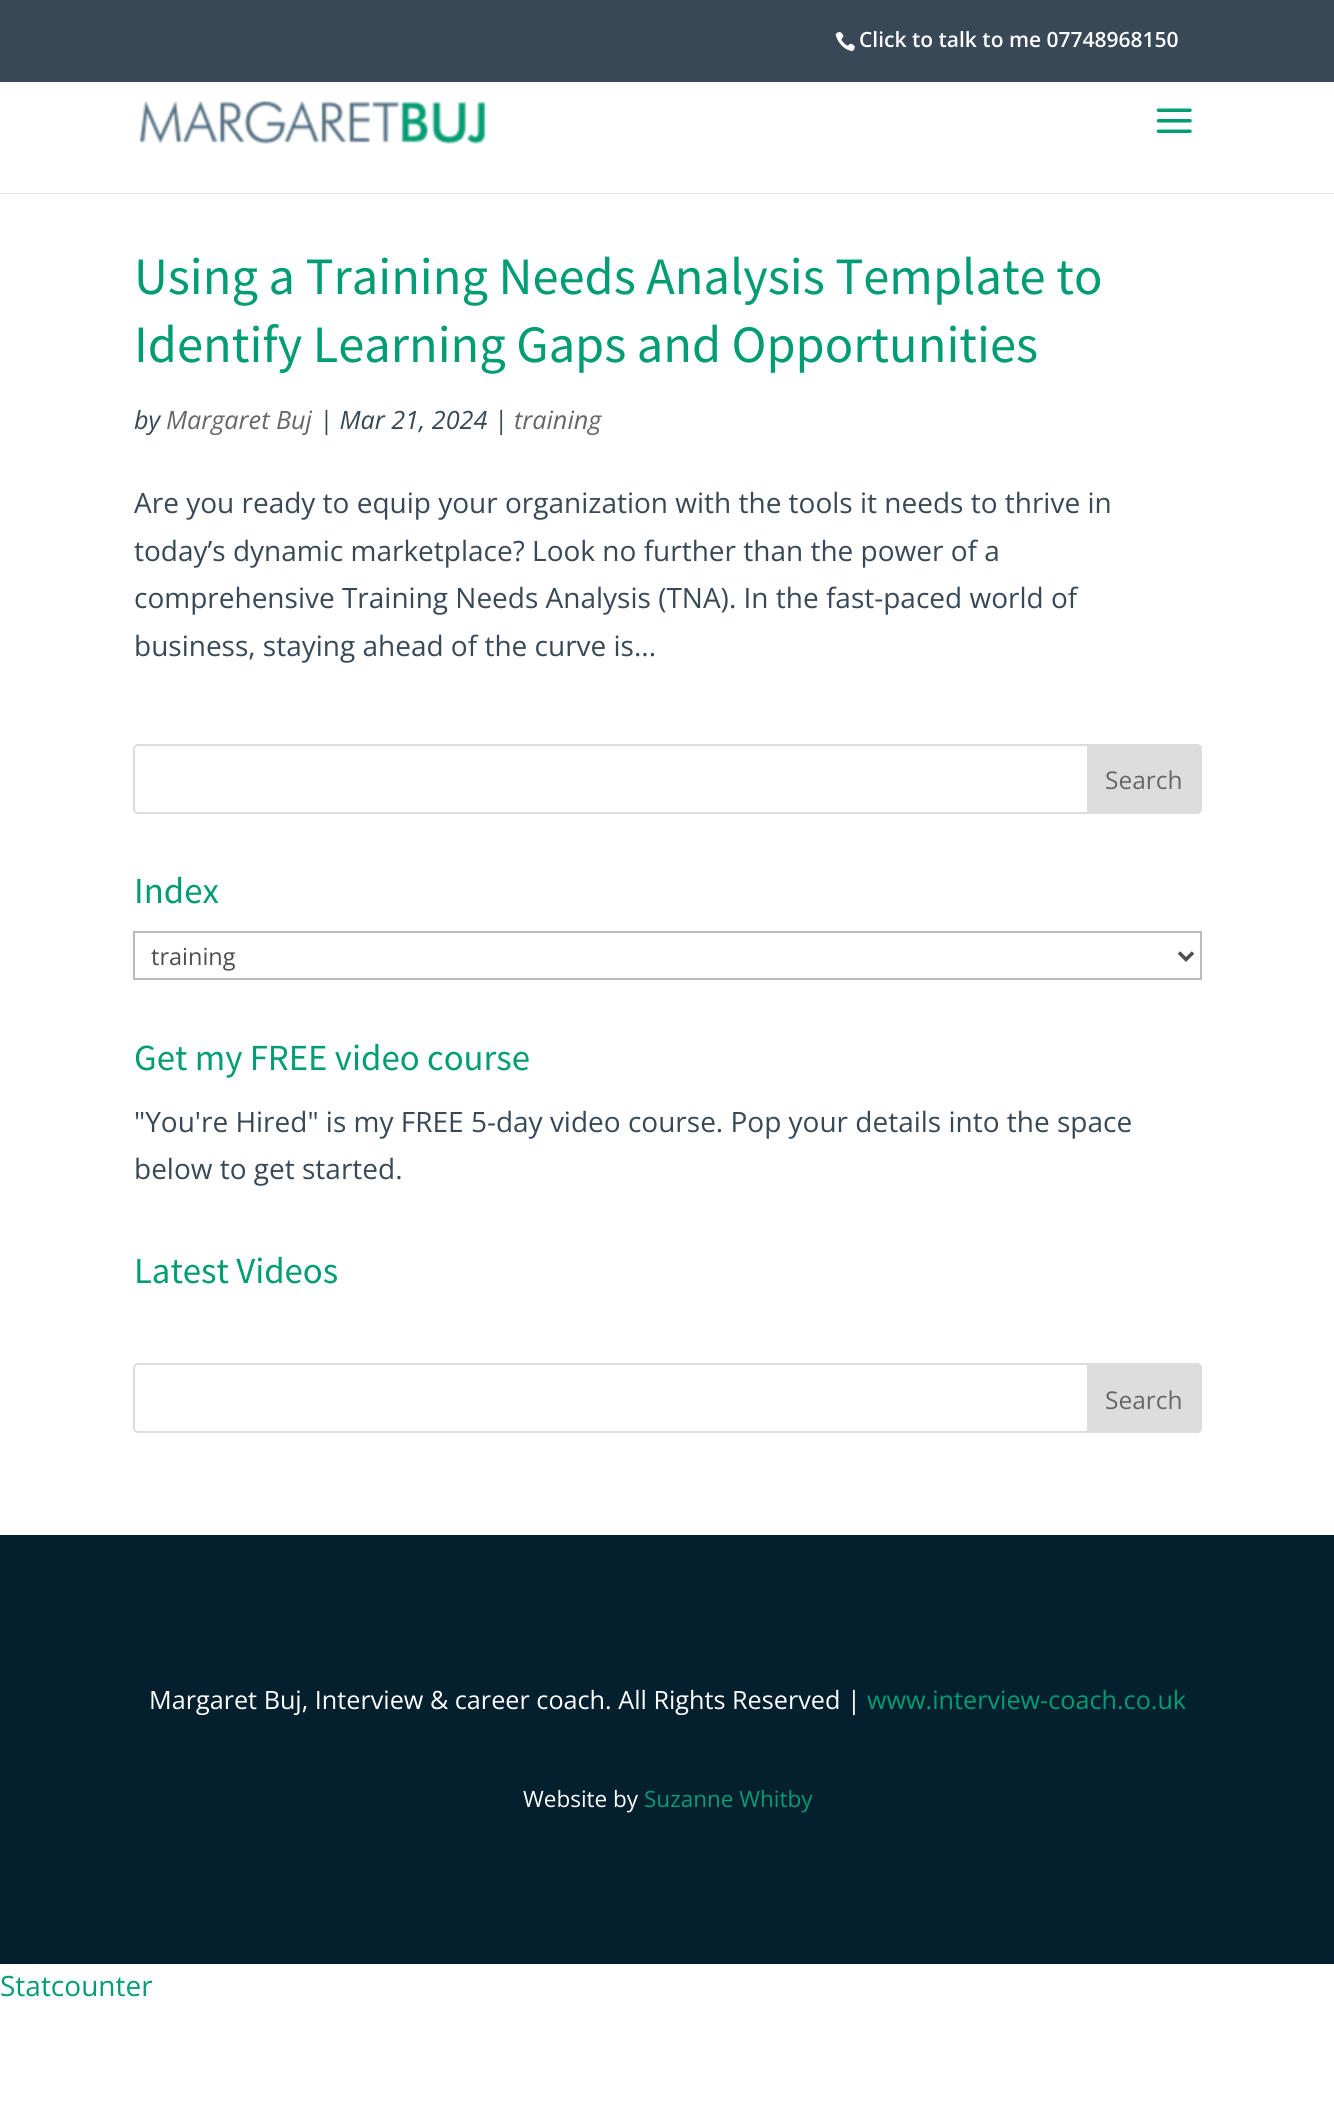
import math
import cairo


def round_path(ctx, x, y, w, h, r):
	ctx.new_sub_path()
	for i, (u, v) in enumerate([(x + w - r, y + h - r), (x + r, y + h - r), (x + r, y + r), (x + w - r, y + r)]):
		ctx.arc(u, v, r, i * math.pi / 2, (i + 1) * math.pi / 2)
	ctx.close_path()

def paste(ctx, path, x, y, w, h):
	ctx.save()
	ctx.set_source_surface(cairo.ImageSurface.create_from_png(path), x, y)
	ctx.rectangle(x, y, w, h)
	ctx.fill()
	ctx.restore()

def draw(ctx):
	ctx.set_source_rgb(1, 1, 1)
	ctx.paint()
	ctx.set_source_rgb(0.22, 0.282, 0.337)
	ctx.rectangle(0, 0, 1334, 82)
	ctx.fill()
	paste(ctx, 'media/1.png', 835, 31, 20, 21)
	ctx.select_font_face('Open Sans SemiBold')
	ctx.set_font_size(21)
	ctx.set_source_rgb(1, 1, 1)
	ctx.move_to(859, 47)
	ctx.show_text('Click to talk to me 07748968150')
	ctx.set_source_rgb(0.902, 0.902, 0.902)
	ctx.rectangle(0, 193, 1334, 1)
	ctx.fill()
	paste(ctx, 'media/2.png', 139, 101, 347, 43)
	paste(ctx, 'media/3.png', 1156, 108, 36, 25)
	ctx.select_font_face('Source Sans Pro')
	ctx.set_font_size(52.5)
	ctx.set_source_rgb(0, 0.616, 0.459)
	ctx.move_to(134, 294)
	ctx.show_text('Using a Training Needs Analysis Template to')
	ctx.move_to(134, 362)
	ctx.show_text('Identify Learning Gaps and Opportunities')
	ctx.select_font_face('Open Sans', cairo.FONT_SLANT_ITALIC)
	ctx.set_font_size(25.2)
	ctx.set_source_rgb(0.22, 0.282, 0.337)
	ctx.move_to(134, 429)
	ctx.show_text('by')
	ctx.set_source_rgb(0.4, 0.4, 0.4)
	ctx.move_to(166, 429)
	ctx.show_text('Margaret Buj')
	ctx.set_source_rgb(0.22, 0.282, 0.337)
	ctx.move_to(319, 429)
	ctx.show_text('| Mar 21, 2024 |')
	ctx.set_source_rgb(0.4, 0.4, 0.4)
	ctx.move_to(514, 429)
	ctx.show_text('training')
	ctx.select_font_face('Open Sans')
	ctx.set_font_size(28)
	ctx.set_source_rgb(0.22, 0.282, 0.337)
	for x, y, s in [
		(134, 513, 'Are you ready to equip your organization with the tools it needs to thrive in'),
		(134, 561, 'today’s dynamic marketplace? Look no further than the power of a'),
		(134, 608, 'comprehensive Training Needs Analysis (TNA). In the fast-paced world of'),
		(134, 656, 'business, staying ahead of the curve is...'),
	]:
		ctx.move_to(x, y)
		ctx.show_text(s)
	round_path(ctx, 134, 745, 1067, 68, 4)
	ctx.set_source_rgb(0.867, 0.867, 0.867)
	ctx.stroke()
	ctx.new_path()
	ctx.move_to(1088, 745)
	ctx.line_to(1197, 745)
	ctx.curve_to(1199, 745, 1201, 747, 1201, 749)
	ctx.line_to(1201, 809)
	ctx.curve_to(1201, 811, 1199, 813, 1197, 813)
	ctx.line_to(1088, 813)
	ctx.close_path()
	ctx.fill_preserve()
	ctx.stroke()
	ctx.set_font_size(24.5)
	ctx.set_source_rgb(0.4, 0.4, 0.4)
	ctx.move_to(1105, 789)
	ctx.show_text('Search')
	ctx.select_font_face('Source Sans Pro')
	ctx.set_font_size(36.75)
	ctx.set_source_rgb(0, 0.616, 0.459)
	ctx.move_to(134, 903)
	ctx.show_text('Index')
	ctx.rectangle(134, 932, 1067, 47)
	ctx.set_source_rgb(0.733, 0.733, 0.733)
	ctx.stroke()
	ctx.new_path()
	ctx.move_to(1179, 952.5)
	ctx.line_to(1186, 959.5)
	ctx.line_to(1193, 952.5)
	ctx.set_source_rgb(0.306, 0.306, 0.306)
	ctx.set_line_width(3.5)
	ctx.stroke()
	ctx.select_font_face('Open Sans')
	ctx.set_font_size(23.5)
	ctx.move_to(151, 965)
	ctx.show_text('training')
	ctx.select_font_face('Source Sans Pro')
	ctx.set_font_size(36.75)
	ctx.set_source_rgb(0, 0.616, 0.459)
	ctx.move_to(134, 1070)
	ctx.show_text('Get my FREE video course')
	ctx.select_font_face('Open Sans')
	ctx.set_font_size(28)
	ctx.set_source_rgb(0.22, 0.282, 0.337)
	ctx.move_to(134, 1132)
	ctx.show_text('"You\'re Hired" is my FREE 5-day video course. Pop your details into the space')
	ctx.move_to(134, 1179)
	ctx.show_text('below to get started.')
	ctx.select_font_face('Source Sans Pro')
	ctx.set_font_size(36.75)
	ctx.set_source_rgb(0, 0.616, 0.459)
	ctx.move_to(134, 1283)
	ctx.show_text('Latest Videos')
	round_path(ctx, 134, 1364, 1067, 68, 4)
	ctx.set_source_rgb(0.867, 0.867, 0.867)
	ctx.set_line_width(2)
	ctx.stroke()
	ctx.new_path()
	ctx.move_to(1088, 1364)
	ctx.line_to(1197, 1364)
	ctx.curve_to(1199, 1364, 1201, 1366, 1201, 1368)
	ctx.line_to(1201, 1428)
	ctx.curve_to(1201, 1430, 1199, 1432, 1197, 1432)
	ctx.line_to(1088, 1432)
	ctx.close_path()
	ctx.fill_preserve()
	ctx.stroke()
	ctx.select_font_face('Open Sans')
	ctx.set_font_size(24.5)
	ctx.set_source_rgb(0.4, 0.4, 0.4)
	ctx.move_to(1105, 1409)
	ctx.show_text('Search')
	ctx.set_source_rgb(0.016, 0.125, 0.18)
	ctx.rectangle(0, 1535, 1334, 429)
	ctx.fill()
	ctx.set_font_size(25.2)
	ctx.set_source_rgb(1, 1, 1)
	ctx.move_to(149, 1709)
	ctx.show_text('Margaret Buj, Interview & career coach. All Rights Reserved |')
	ctx.set_source_rgb(0, 0.616, 0.459)
	ctx.move_to(867, 1709)
	ctx.show_text('www.interview-coach.co.uk')
	ctx.set_font_size(22.5)
	ctx.set_source_rgb(1, 1, 1)
	ctx.move_to(523, 1807)
	ctx.show_text('Website by')
	ctx.set_source_rgb(0, 0.616, 0.459)
	ctx.move_to(644, 1807)
	ctx.show_text('Suzanne Whitby')
	ctx.set_font_size(28)
	ctx.move_to(0, 1996)
	ctx.show_text('Statcounter')


surface = cairo.ImageSurface(cairo.FORMAT_RGB24, 1334, 2108)
ctx = cairo.Context(surface)
options = cairo.FontOptions()
options.set_hint_metrics(cairo.HINT_METRICS_OFF)
options.set_hint_style(cairo.HINT_STYLE_NONE)
ctx.set_font_options(options)
ctx.set_miter_limit(4)
draw(ctx)
surface.write_to_png('image.png')
